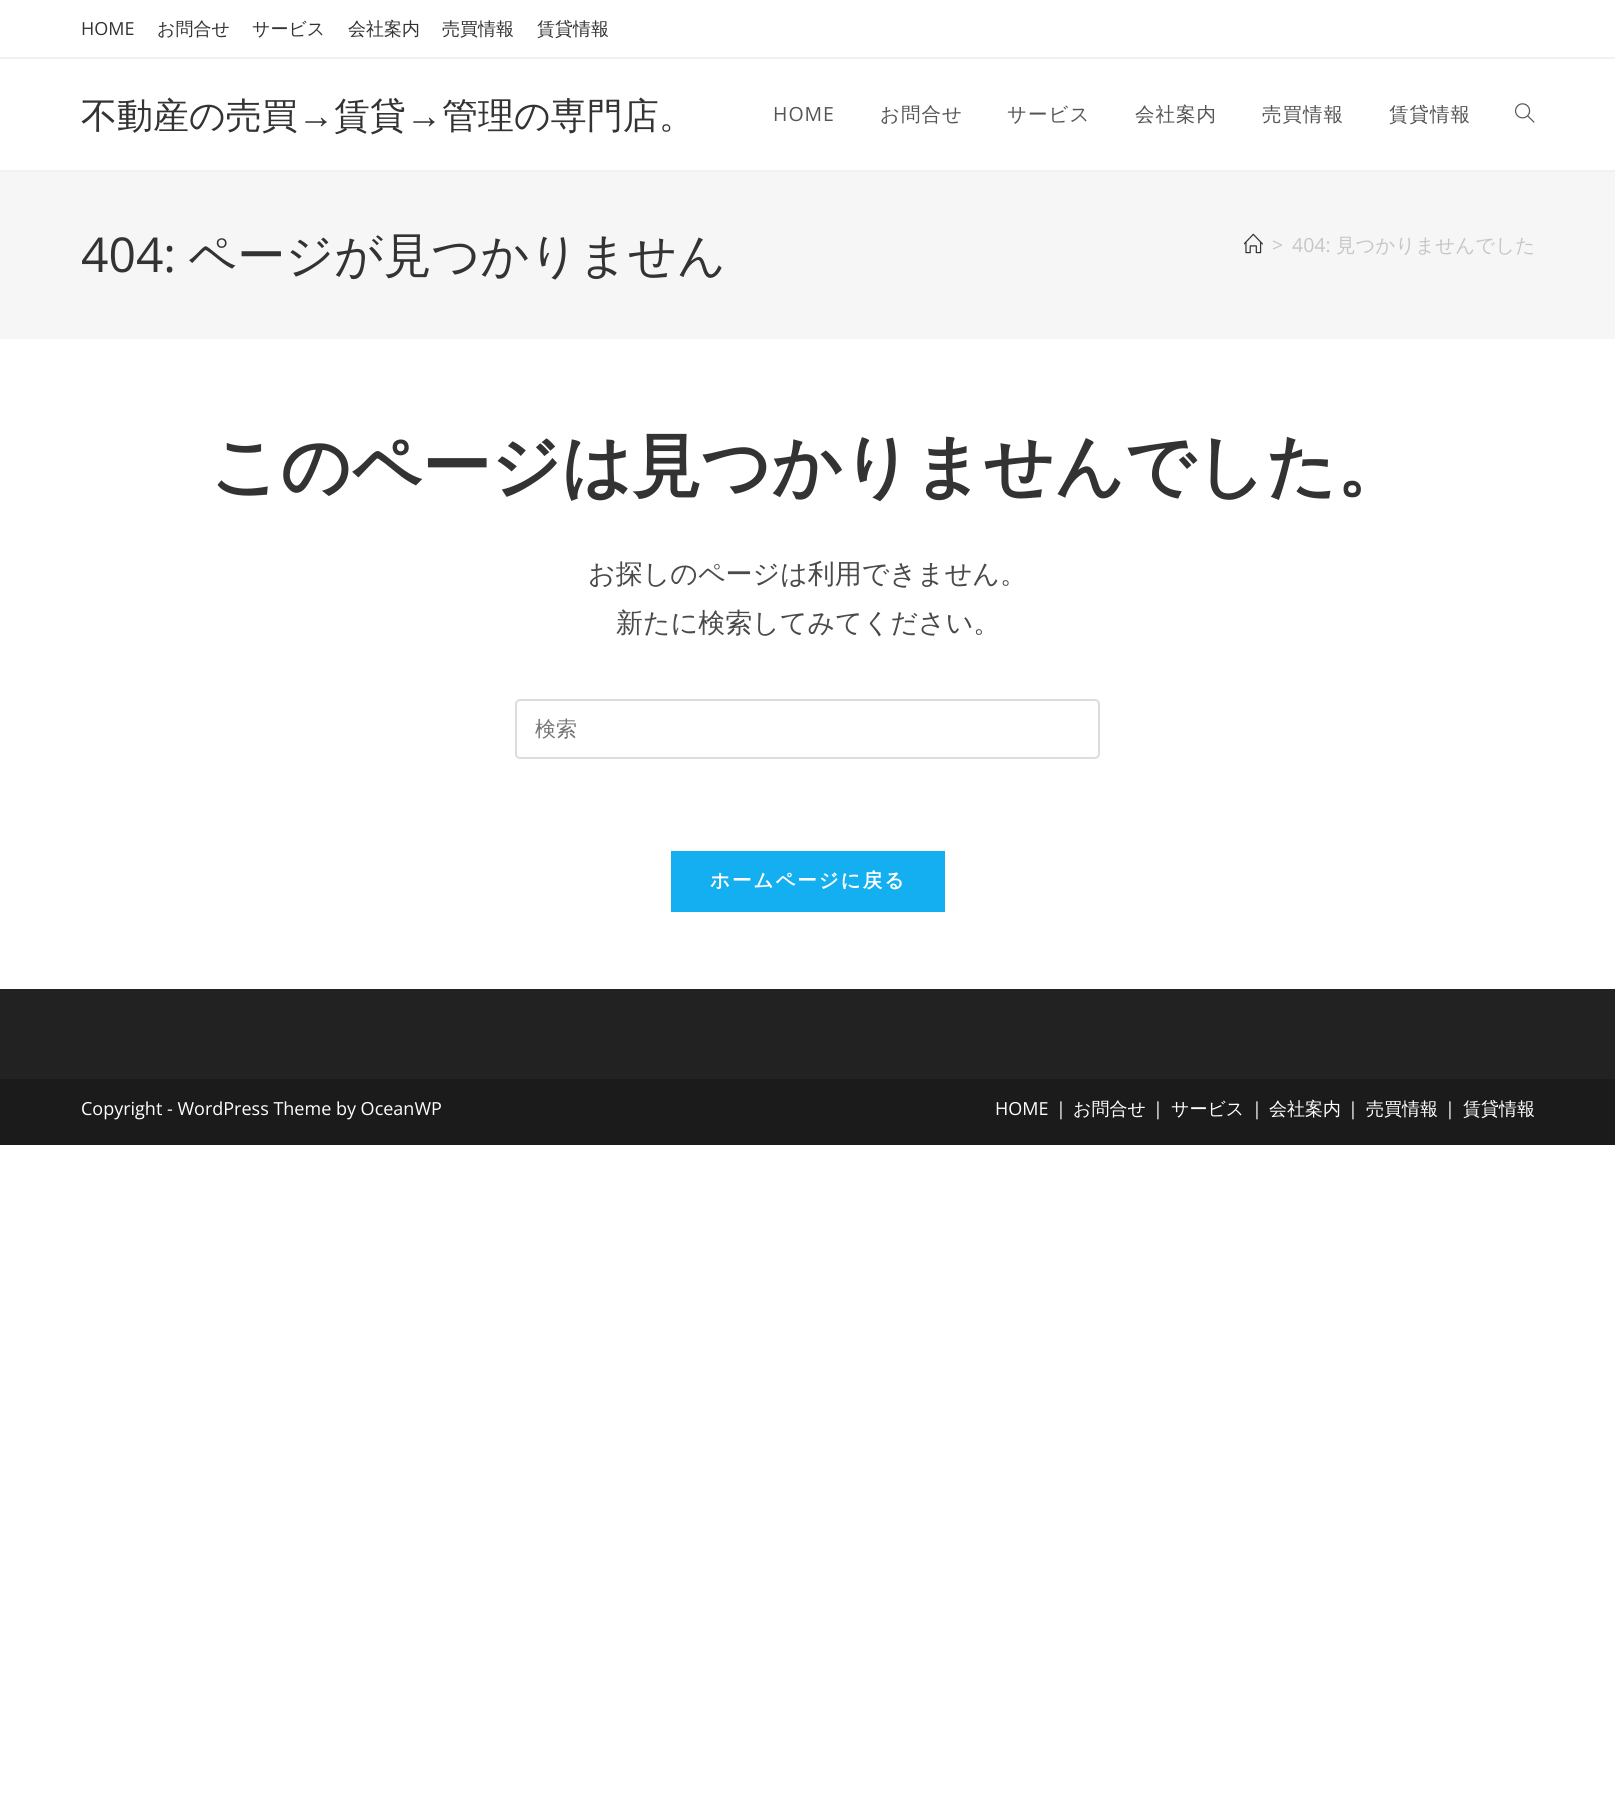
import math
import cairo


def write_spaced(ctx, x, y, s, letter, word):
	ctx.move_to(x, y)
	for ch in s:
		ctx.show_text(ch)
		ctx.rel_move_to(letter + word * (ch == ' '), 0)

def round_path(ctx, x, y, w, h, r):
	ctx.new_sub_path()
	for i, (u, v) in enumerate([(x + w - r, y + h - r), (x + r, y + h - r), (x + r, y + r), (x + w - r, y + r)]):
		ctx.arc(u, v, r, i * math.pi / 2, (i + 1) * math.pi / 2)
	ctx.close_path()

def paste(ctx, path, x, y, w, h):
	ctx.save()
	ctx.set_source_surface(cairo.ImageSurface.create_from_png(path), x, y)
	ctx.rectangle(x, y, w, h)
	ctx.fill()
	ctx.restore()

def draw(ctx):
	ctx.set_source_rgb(1, 1, 1)
	ctx.paint()
	ctx.set_source_rgb(0.945, 0.945, 0.945)
	ctx.rectangle(0, 57, 1615, 2)
	ctx.fill()
	ctx.select_font_face('Open Sans')
	ctx.set_font_size(18)
	ctx.set_source_rgb(0.2, 0.2, 0.2)
	ctx.move_to(81, 35)
	ctx.show_text('HOME')
	ctx.select_font_face('WenQuanYi Zen Hei Medium')
	for x, y, s in [
		(157, 35, 'お問合せ'),
		(252, 35, 'サービス'),
		(348, 35, '会社案内'),
		(442, 35, '売買情報'),
		(537, 35, '賃貸情報'),
	]:
		ctx.move_to(x, y)
		ctx.show_text(s)
	ctx.set_source_rgb(0.945, 0.945, 0.945)
	ctx.rectangle(0, 170, 1615, 2)
	ctx.fill()
	ctx.set_font_size(36)
	ctx.set_source_rgb(0.2, 0.2, 0.2)
	ctx.move_to(81, 128)
	ctx.show_text('不動産の売買')
	ctx.select_font_face('Liberation Sans')
	ctx.move_to(298, 128)
	ctx.show_text('→')
	ctx.select_font_face('WenQuanYi Zen Hei Medium')
	ctx.move_to(334, 128)
	ctx.show_text('賃貸')
	ctx.select_font_face('Liberation Sans')
	ctx.move_to(406, 128)
	ctx.show_text('→')
	ctx.select_font_face('WenQuanYi Zen Hei Medium')
	ctx.move_to(442, 128)
	ctx.show_text('管理の専門店。')
	ctx.select_font_face('Open Sans')
	ctx.set_font_size(19.5)
	ctx.set_source_rgb(0.333, 0.333, 0.333)
	write_spaced(ctx, 773, 121, 'HOME', 1, 0)
	ctx.select_font_face('WenQuanYi Zen Hei Medium')
	for x, y, s in [
		(880, 121, 'お問合せ'),
		(1007, 121, 'サービス'),
		(1135, 121, '会社案内'),
		(1262, 121, '売買情報'),
		(1389, 121, '賃貸情報'),
	]:
		write_spaced(ctx, x, y, s, 1, 0)
	paste(ctx, 'media/1.png', 1515, 103, 20, 20)
	ctx.set_source_rgb(0.961, 0.961, 0.961)
	ctx.rectangle(0, 172, 1615, 167)
	ctx.fill()
	ctx.select_font_face('Open Sans')
	ctx.set_font_size(48)
	ctx.set_source_rgb(0.2, 0.2, 0.2)
	ctx.move_to(81, 272)
	ctx.show_text('404:')
	ctx.select_font_face('WenQuanYi Zen Hei Medium')
	ctx.move_to(188, 272)
	ctx.show_text('ページが見つかりません')
	paste(ctx, 'media/2.png', 1244, 233, 19, 21)
	ctx.select_font_face('Open Sans')
	ctx.set_font_size(19.5)
	ctx.set_source_rgb(0.776, 0.776, 0.776)
	ctx.move_to(1272, 252)
	ctx.show_text('>')
	ctx.move_to(1292, 252)
	ctx.show_text('404:')
	ctx.select_font_face('WenQuanYi Zen Hei Medium')
	ctx.move_to(1336, 252)
	ctx.show_text('見つかりませんでした')
	ctx.select_font_face('WenQuanYi Zen Hei', cairo.FONT_SLANT_NORMAL, cairo.FONT_WEIGHT_BOLD)
	ctx.set_font_size(69)
	ctx.set_source_rgb(0.2, 0.2, 0.2)
	ctx.move_to(210, 490)
	ctx.show_text('このページは見つかりませんでした。')
	ctx.select_font_face('WenQuanYi Zen Hei Medium')
	ctx.set_font_size(27)
	ctx.set_source_rgb(0.29, 0.29, 0.29)
	ctx.move_to(588, 583)
	ctx.show_text('お探しのページは利用できません。')
	ctx.move_to(616, 632)
	ctx.show_text('新たに検索してみてください。')
	round_path(ctx, 516, 700, 583, 58, 4)
	ctx.set_source_rgb(0.867, 0.867, 0.867)
	ctx.stroke()
	ctx.set_font_size(21)
	ctx.set_source_rgb(0.459, 0.459, 0.459)
	ctx.move_to(535, 736)
	ctx.show_text('検索')
	ctx.set_source_rgb(0.075, 0.686, 0.941)
	ctx.rectangle(671, 851, 274, 61)
	ctx.fill()
	ctx.select_font_face('WenQuanYi Zen Hei', cairo.FONT_SLANT_NORMAL, cairo.FONT_WEIGHT_BOLD)
	ctx.set_font_size(19.5)
	ctx.set_source_rgb(1, 1, 1)
	write_spaced(ctx, 710, 887, 'ホームページに戻る', 2, 0)
	ctx.set_source_rgb(0.133, 0.133, 0.133)
	ctx.rectangle(0, 989, 1615, 90)
	ctx.fill()
	ctx.set_source_rgb(0.106, 0.106, 0.106)
	ctx.rectangle(0, 1079, 1615, 66)
	ctx.fill()
	ctx.select_font_face('Open Sans')
	ctx.set_font_size(18)
	ctx.set_source_rgb(1, 1, 1)
	for x, y, s in [
		(81, 1115, 'Copyright - WordPress Theme by OceanWP'),
		(995, 1115, 'HOME'),
		(1056, 1115, '|'),
	]:
		ctx.move_to(x, y)
		ctx.show_text(s)
	ctx.select_font_face('WenQuanYi Zen Hei Medium')
	ctx.move_to(1073, 1115)
	ctx.show_text('お問合せ')
	ctx.select_font_face('Open Sans')
	ctx.move_to(1153, 1115)
	ctx.show_text('|')
	ctx.select_font_face('WenQuanYi Zen Hei Medium')
	ctx.move_to(1171, 1115)
	ctx.show_text('サービス')
	ctx.select_font_face('Open Sans')
	ctx.move_to(1252, 1115)
	ctx.show_text('|')
	ctx.select_font_face('WenQuanYi Zen Hei Medium')
	ctx.move_to(1269, 1115)
	ctx.show_text('会社案内')
	ctx.select_font_face('Open Sans')
	ctx.move_to(1348, 1115)
	ctx.show_text('|')
	ctx.select_font_face('WenQuanYi Zen Hei Medium')
	ctx.move_to(1366, 1115)
	ctx.show_text('売買情報')
	ctx.select_font_face('Open Sans')
	ctx.move_to(1445, 1115)
	ctx.show_text('|')
	ctx.select_font_face('WenQuanYi Zen Hei Medium')
	ctx.move_to(1463, 1115)
	ctx.show_text('賃貸情報')


surface = cairo.ImageSurface(cairo.FORMAT_RGB24, 1615, 1807)
ctx = cairo.Context(surface)
options = cairo.FontOptions()
options.set_hint_metrics(cairo.HINT_METRICS_OFF)
options.set_hint_style(cairo.HINT_STYLE_NONE)
ctx.set_font_options(options)
ctx.set_miter_limit(4)
draw(ctx)
surface.write_to_png('image.png')
